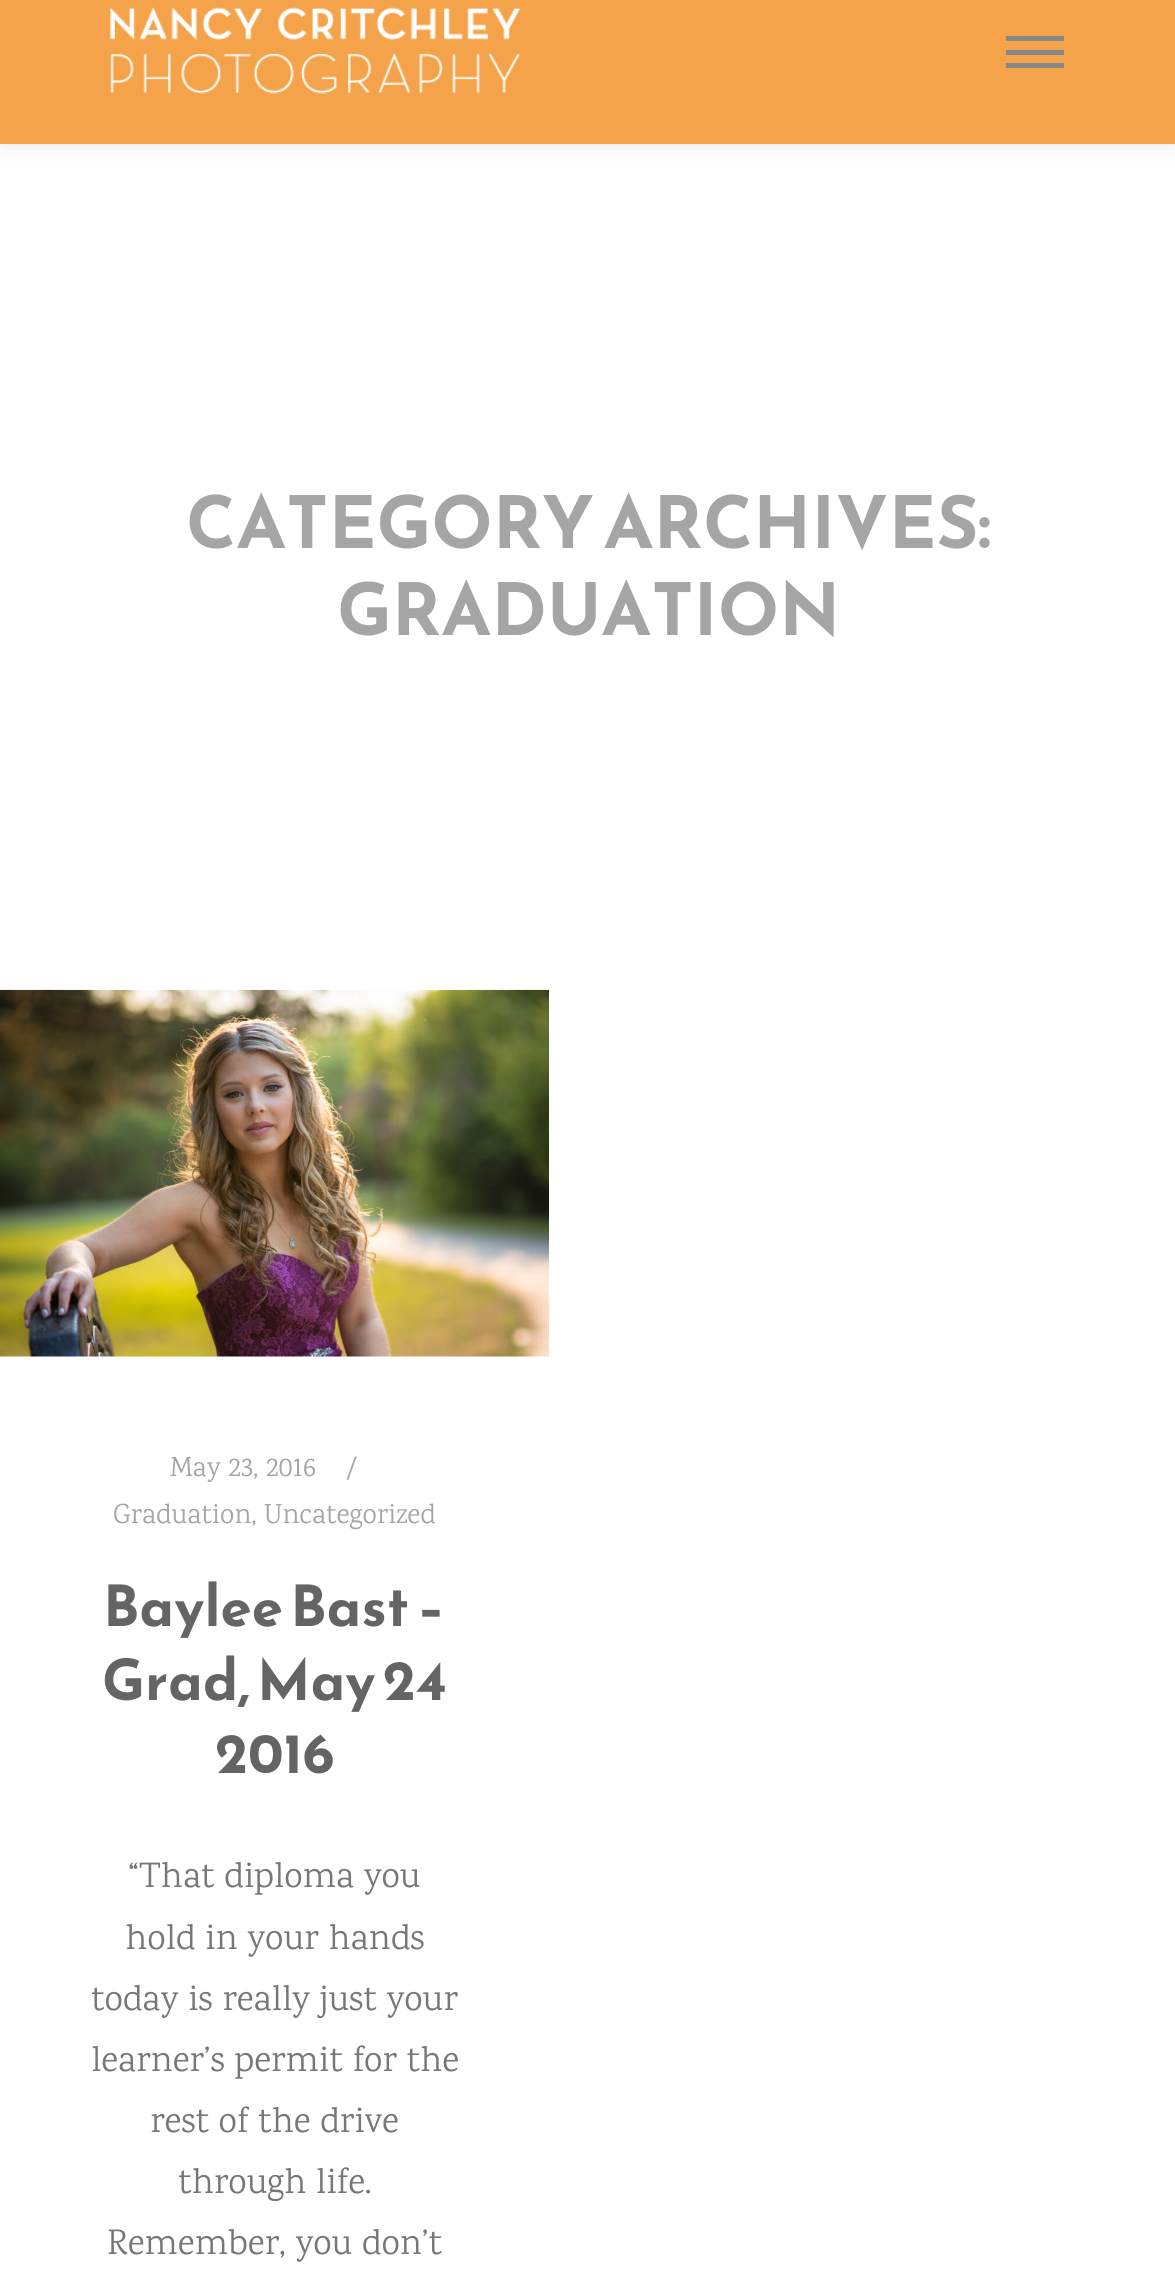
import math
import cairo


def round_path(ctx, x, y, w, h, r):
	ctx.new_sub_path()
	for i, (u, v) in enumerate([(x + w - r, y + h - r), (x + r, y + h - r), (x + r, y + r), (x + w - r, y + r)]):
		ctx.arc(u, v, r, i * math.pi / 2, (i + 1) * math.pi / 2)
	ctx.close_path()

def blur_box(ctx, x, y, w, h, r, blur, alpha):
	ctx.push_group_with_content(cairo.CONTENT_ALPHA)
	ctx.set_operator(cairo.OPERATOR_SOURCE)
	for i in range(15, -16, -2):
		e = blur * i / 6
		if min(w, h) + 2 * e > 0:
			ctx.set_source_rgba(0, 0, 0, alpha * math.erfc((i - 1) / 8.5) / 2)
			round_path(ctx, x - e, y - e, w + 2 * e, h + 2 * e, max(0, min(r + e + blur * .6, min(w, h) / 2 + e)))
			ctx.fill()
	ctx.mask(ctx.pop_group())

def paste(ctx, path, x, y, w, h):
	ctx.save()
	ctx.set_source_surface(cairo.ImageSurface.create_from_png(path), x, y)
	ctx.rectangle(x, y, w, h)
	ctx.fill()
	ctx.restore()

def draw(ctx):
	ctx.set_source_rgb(1, 1, 1)
	ctx.paint()
	ctx.set_source_rgb(0, 0, 0)
	blur_box(ctx, 0, -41, 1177, 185, 0, 13.5, 0.09)
	ctx.set_source_rgb(0.957, 0.639, 0.294)
	ctx.rectangle(0, 0, 1175, 144)
	ctx.fill()
	paste(ctx, 'media/1.png', 110, 7, 410, 87)
	ctx.set_source_rgb(0.529, 0.529, 0.529)
	ctx.rectangle(1006, 50, 58, 5)
	ctx.rectangle(1006, 36, 58, 5)
	ctx.rectangle(1006, 63, 58, 5)
	ctx.fill()
	ctx.select_font_face('Reem Kufi', cairo.FONT_SLANT_NORMAL, cairo.FONT_WEIGHT_BOLD)
	ctx.set_font_size(72)
	ctx.set_source_rgb(0.647, 0.647, 0.647)
	ctx.move_to(186, 548)
	ctx.show_text('CATEGORY ARCHIVES:')
	ctx.move_to(337, 635)
	ctx.show_text('GRADUATION')
	paste(ctx, 'media/2.png', 0, 989, 549, 368)
	ctx.select_font_face('Karma')
	ctx.set_font_size(28)
	for x, y, s in [
		(170, 1476, 'May 23, 2016'),
		(346, 1476, '/'),
		(113, 1523, 'Graduation, Uncategorized'),
	]:
		ctx.move_to(x, y)
		ctx.show_text(s)
	ctx.select_font_face('Reem Kufi', cairo.FONT_SLANT_NORMAL, cairo.FONT_WEIGHT_BOLD)
	ctx.set_font_size(56.5)
	ctx.set_source_rgb(0.392, 0.392, 0.392)
	for x, y, s in [
		(103, 1626, 'Baylee Bast –'),
		(102, 1700, 'Grad, May 24'),
		(215, 1773, '2016'),
	]:
		ctx.move_to(x, y)
		ctx.show_text(s)
	ctx.select_font_face('Karma')
	ctx.set_font_size(36)
	ctx.set_source_rgb(0.467, 0.467, 0.467)
	for x, y, s in [
		(128, 1887, '“That diploma you'),
		(125, 1949, 'hold in your hands'),
		(91, 2010, 'today is really just your'),
		(91, 2071, 'learner’s permit for the'),
		(150, 2132, 'rest of the drive'),
		(178, 2193, 'through life.'),
		(107, 2254, 'Remember, you don’t'),
	]:
		ctx.move_to(x, y)
		ctx.show_text(s)


surface = cairo.ImageSurface(cairo.FORMAT_RGB24, 1175, 2291)
ctx = cairo.Context(surface)
options = cairo.FontOptions()
options.set_hint_metrics(cairo.HINT_METRICS_OFF)
options.set_hint_style(cairo.HINT_STYLE_NONE)
ctx.set_font_options(options)
ctx.set_miter_limit(4)
draw(ctx)
surface.write_to_png('image.png')
